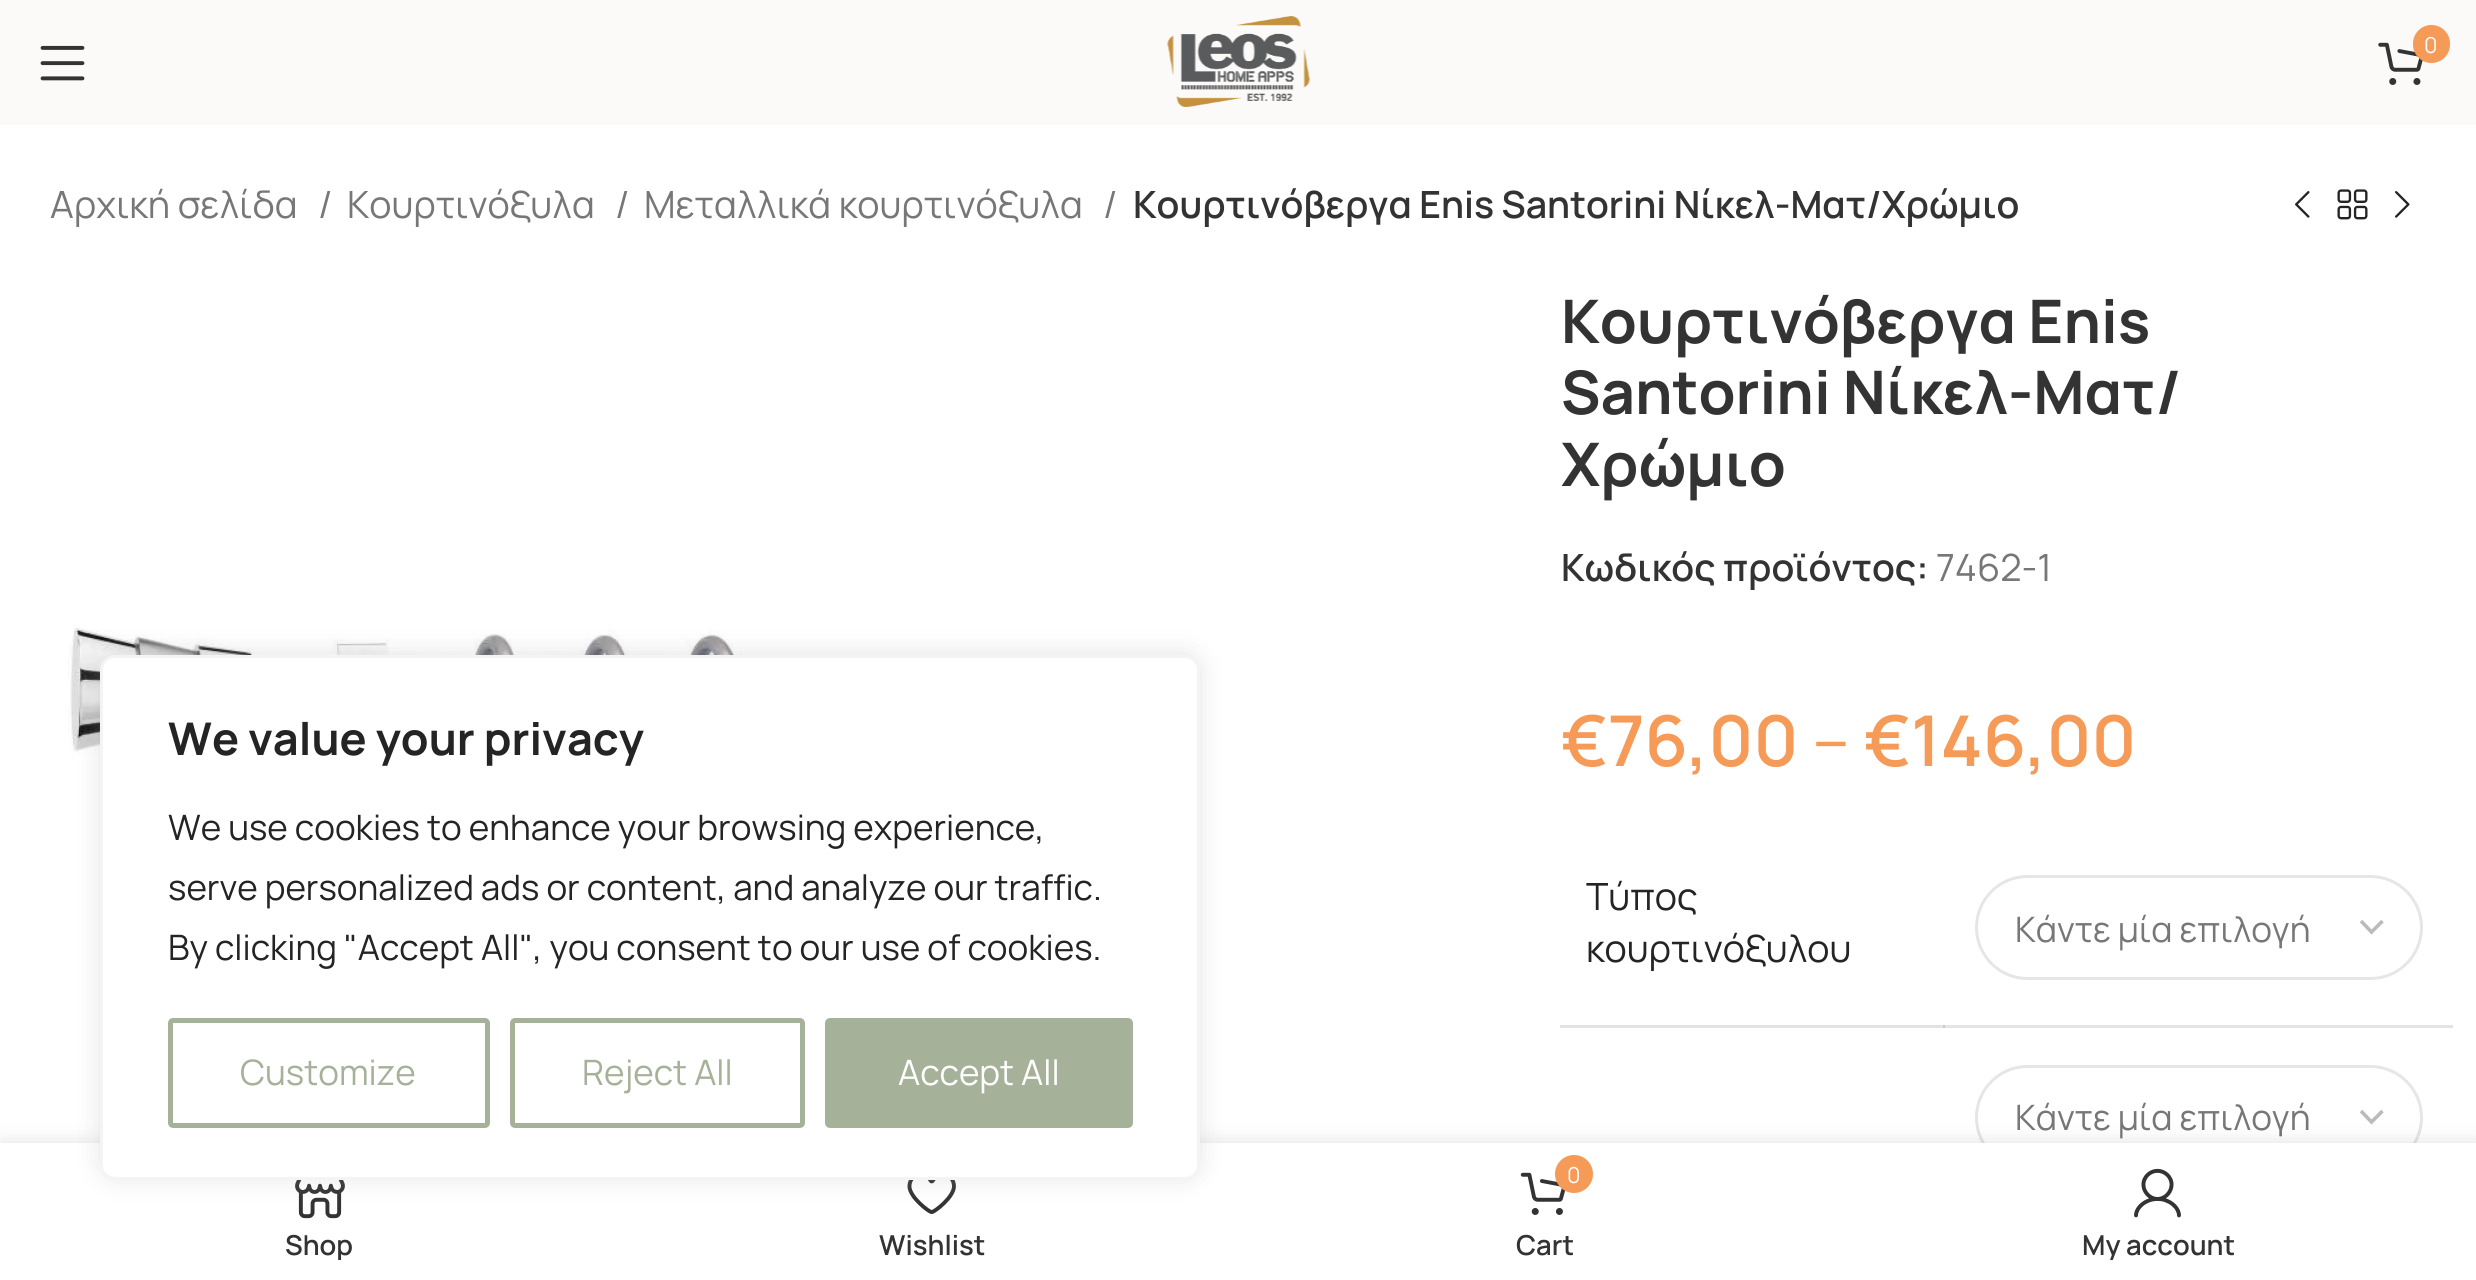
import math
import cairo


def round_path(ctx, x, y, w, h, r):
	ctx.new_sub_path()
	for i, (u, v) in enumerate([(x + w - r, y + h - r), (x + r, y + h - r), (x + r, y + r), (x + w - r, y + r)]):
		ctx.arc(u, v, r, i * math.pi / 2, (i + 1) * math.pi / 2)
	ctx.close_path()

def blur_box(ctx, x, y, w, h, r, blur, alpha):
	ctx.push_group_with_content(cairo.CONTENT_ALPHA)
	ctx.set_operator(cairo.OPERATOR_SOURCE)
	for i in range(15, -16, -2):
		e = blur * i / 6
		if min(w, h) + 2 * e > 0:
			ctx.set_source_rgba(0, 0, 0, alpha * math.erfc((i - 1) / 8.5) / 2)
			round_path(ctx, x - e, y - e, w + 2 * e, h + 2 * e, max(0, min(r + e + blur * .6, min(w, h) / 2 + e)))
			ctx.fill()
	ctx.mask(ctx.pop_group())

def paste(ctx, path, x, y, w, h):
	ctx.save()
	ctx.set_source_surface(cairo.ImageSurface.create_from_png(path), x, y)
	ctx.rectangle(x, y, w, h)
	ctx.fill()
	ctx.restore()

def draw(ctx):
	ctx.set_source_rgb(1, 1, 1)
	ctx.paint()
	ctx.set_source_rgb(0.984, 0.98, 0.969)
	ctx.rectangle(0, 0, 2476, 125)
	ctx.fill()
	paste(ctx, 'media/1.png', 40, 45, 45, 36)
	paste(ctx, 'media/2.png', 1166, 16, 144, 91)
	paste(ctx, 'media/3.png', 2378, 42, 45, 43)
	ctx.set_source_rgb(0.961, 0.604, 0.341)
	round_path(ctx, 2413, 25, 37, 38, 18.5)
	ctx.fill()
	ctx.select_font_face('Manrope')
	ctx.set_font_size(22)
	ctx.set_source_rgb(1, 1, 1)
	ctx.move_to(2424, 53)
	ctx.show_text('0')
	ctx.set_font_size(37.5)
	ctx.set_source_rgb(0.467, 0.467, 0.467)
	for x, y, s in [
		(50, 218, 'Αρχική σελίδα'),
		(318, 218, '/'),
		(347, 218, 'Κουρτινόξυλα'),
		(615, 218, '/'),
		(644, 218, 'Μεταλλικά κουρτινόξυλα'),
		(1103, 218, '/'),
	]:
		ctx.move_to(x, y)
		ctx.show_text(s)
	ctx.select_font_face('Manrope SemiBold')
	ctx.set_source_rgb(0.2, 0.2, 0.2)
	ctx.move_to(1133, 218)
	ctx.show_text('Κουρτινόβεργα Enis Santorini Νίκελ-Ματ/Χρώμιο')
	paste(ctx, 'media/4.png', 2295, 191, 15, 27)
	paste(ctx, 'media/5.png', 2337, 189, 31, 31)
	paste(ctx, 'media/6.png', 2395, 191, 15, 27)
	paste(ctx, 'media/7.png', 68, 625, 675, 302)
	ctx.select_font_face('Manrope', cairo.FONT_SLANT_NORMAL, cairo.FONT_WEIGHT_BOLD)
	ctx.set_font_size(60)
	for x, y, s in [
		(1561, 343, 'Κουρτινόβεργα Enis'),
		(1561, 414, 'Santorini Νίκελ-Ματ/'),
		(1561, 486, 'Χρώμιο'),
	]:
		ctx.move_to(x, y)
		ctx.show_text(s)
	ctx.select_font_face('Manrope SemiBold')
	ctx.set_font_size(37.5)
	ctx.move_to(1561, 581)
	ctx.show_text('Κωδικός προϊόντος:')
	ctx.select_font_face('Manrope')
	ctx.set_source_rgb(0.467, 0.467, 0.467)
	ctx.move_to(1936, 581)
	ctx.show_text('7462-1')
	ctx.select_font_face('Manrope SemiBold')
	ctx.set_font_size(70)
	ctx.set_source_rgb(0.961, 0.604, 0.341)
	ctx.move_to(1561, 766)
	ctx.show_text('€76,00')
	ctx.select_font_face('Manrope')
	ctx.move_to(1812, 766)
	ctx.show_text('–')
	ctx.select_font_face('Manrope SemiBold')
	ctx.move_to(1864, 766)
	ctx.show_text('€146,00')
	ctx.set_source_rgb(0.894, 0.894, 0.894)
	ctx.rectangle(1943, 1025, 510, 3)
	ctx.fill()
	ctx.set_source_rgba(0, 0, 0, 0.11)
	ctx.rectangle(1560, 1025, 385, 3)
	ctx.fill()
	ctx.select_font_face('Manrope')
	ctx.set_font_size(37.5)
	ctx.set_source_rgb(0.141, 0.141, 0.141)
	ctx.move_to(1586, 910)
	ctx.show_text('Τύπος')
	ctx.move_to(1586, 962)
	ctx.show_text('κουρτινόξυλου')
	ctx.new_path()
	ctx.move_to(2361, 921)
	ctx.line_to(2371.5, 932)
	ctx.line_to(2382.5, 921)
	ctx.set_source_rgb(0.733, 0.733, 0.733)
	ctx.set_line_width(3.6)
	ctx.stroke()
	round_path(ctx, 1976.5, 876.5, 445, 102, 51)
	ctx.set_source_rgb(0.902, 0.902, 0.902)
	ctx.set_line_width(3)
	ctx.stroke()
	ctx.set_font_size(35)
	ctx.set_source_rgb(0.467, 0.467, 0.467)
	ctx.move_to(2015, 942)
	ctx.show_text('Κάντε μία επιλογή')
	ctx.new_path()
	ctx.move_to(2361, 1111)
	ctx.line_to(2371.5, 1122)
	ctx.line_to(2382.5, 1111)
	ctx.set_source_rgb(0.733, 0.733, 0.733)
	ctx.set_line_width(3.6)
	ctx.stroke()
	round_path(ctx, 1976.5, 1066.5, 445, 102, 51)
	ctx.set_source_rgb(0.902, 0.902, 0.902)
	ctx.set_line_width(3)
	ctx.stroke()
	ctx.set_source_rgb(0.467, 0.467, 0.467)
	ctx.move_to(2015, 1130)
	ctx.show_text('Κάντε μία επιλογή')
	ctx.set_source_rgb(0, 0, 0)
	blur_box(ctx, 0, 1143, 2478, 137, 0, 11, 0.12)
	ctx.set_source_rgb(1, 1, 1)
	ctx.rectangle(0, 1143, 2476, 137)
	ctx.fill()
	paste(ctx, 'media/8.png', 295, 1180, 50, 39)
	paste(ctx, 'media/9.png', 907, 1180, 49, 34)
	ctx.set_source_rgb(0.675, 0.671, 0.671)
	blur_box(ctx, 100, 653, 1100, 525, 15, 12.5, 0.3)
	ctx.set_source_rgb(1, 1, 1)
	round_path(ctx, 101.5, 656.5, 1097, 522, 13.5)
	ctx.fill_preserve()
	ctx.set_source_rgb(0.957, 0.957, 0.957)
	ctx.stroke()
	ctx.select_font_face('Manrope', cairo.FONT_SLANT_NORMAL, cairo.FONT_WEIGHT_BOLD)
	ctx.set_font_size(45)
	ctx.set_source_rgb(0.141, 0.141, 0.141)
	ctx.move_to(168, 755)
	ctx.show_text('We value your privacy')
	ctx.select_font_face('Manrope')
	ctx.set_font_size(35)
	for x, y, s in [
		(168, 840, 'We use cookies to enhance your browsing experience,'),
		(168, 900, 'serve personalized ads or content, and analyze our traffic.'),
		(168, 960, 'By clicking "Accept All", you consent to our use of cookies.'),
	]:
		ctx.move_to(x, y)
		ctx.show_text(s)
	round_path(ctx, 170.5, 1020.5, 317, 105, 2.5)
	ctx.set_source_rgb(0.651, 0.694, 0.6)
	ctx.set_line_width(5)
	ctx.stroke()
	ctx.move_to(240, 1085)
	ctx.show_text('Customize')
	round_path(ctx, 512.5, 1020.5, 290, 105, 2.5)
	ctx.stroke()
	ctx.move_to(582, 1085)
	ctx.show_text('Reject All')
	round_path(ctx, 827.5, 1020.5, 303, 105, 2.5)
	ctx.fill_preserve()
	ctx.stroke()
	ctx.set_source_rgb(1, 1, 1)
	ctx.move_to(898, 1085)
	ctx.show_text('Accept All')
	ctx.save()
	ctx.rectangle(38, 1228, 562, 32)
	ctx.clip()
	ctx.select_font_face('Manrope SemiBold')
	ctx.set_font_size(27.5)
	ctx.set_source_rgb(0.2, 0.2, 0.2)
	ctx.move_to(285, 1255)
	ctx.show_text('Shop')
	ctx.restore()
	ctx.select_font_face('Manrope SemiBold')
	ctx.set_font_size(27.5)
	ctx.set_source_rgb(0.2, 0.2, 0.2)
	ctx.move_to(879, 1255)
	ctx.show_text('Wishlist')
	paste(ctx, 'media/10.png', 1520, 1172, 46, 43)
	ctx.set_source_rgb(0.961, 0.604, 0.341)
	ctx.arc(1574, 1174, 19, 0, 2 * math.pi)
	ctx.fill()
	ctx.select_font_face('Manrope')
	ctx.set_font_size(22)
	ctx.set_source_rgb(1, 1, 1)
	ctx.move_to(1567, 1183)
	ctx.show_text('0')
	ctx.select_font_face('Manrope SemiBold')
	ctx.set_font_size(27.5)
	ctx.set_source_rgb(0.2, 0.2, 0.2)
	ctx.move_to(1516, 1255)
	ctx.show_text('Cart')
	paste(ctx, 'media/11.png', 2134, 1168, 47, 50)
	ctx.save()
	ctx.rectangle(1878, 1228, 562, 32)
	ctx.clip()
	ctx.move_to(2082, 1255)
	ctx.show_text('My account')
	ctx.restore()


surface = cairo.ImageSurface(cairo.FORMAT_RGB24, 2476, 1280)
ctx = cairo.Context(surface)
options = cairo.FontOptions()
options.set_hint_metrics(cairo.HINT_METRICS_OFF)
options.set_hint_style(cairo.HINT_STYLE_NONE)
ctx.set_font_options(options)
ctx.set_miter_limit(4)
draw(ctx)
surface.write_to_png('image.png')
